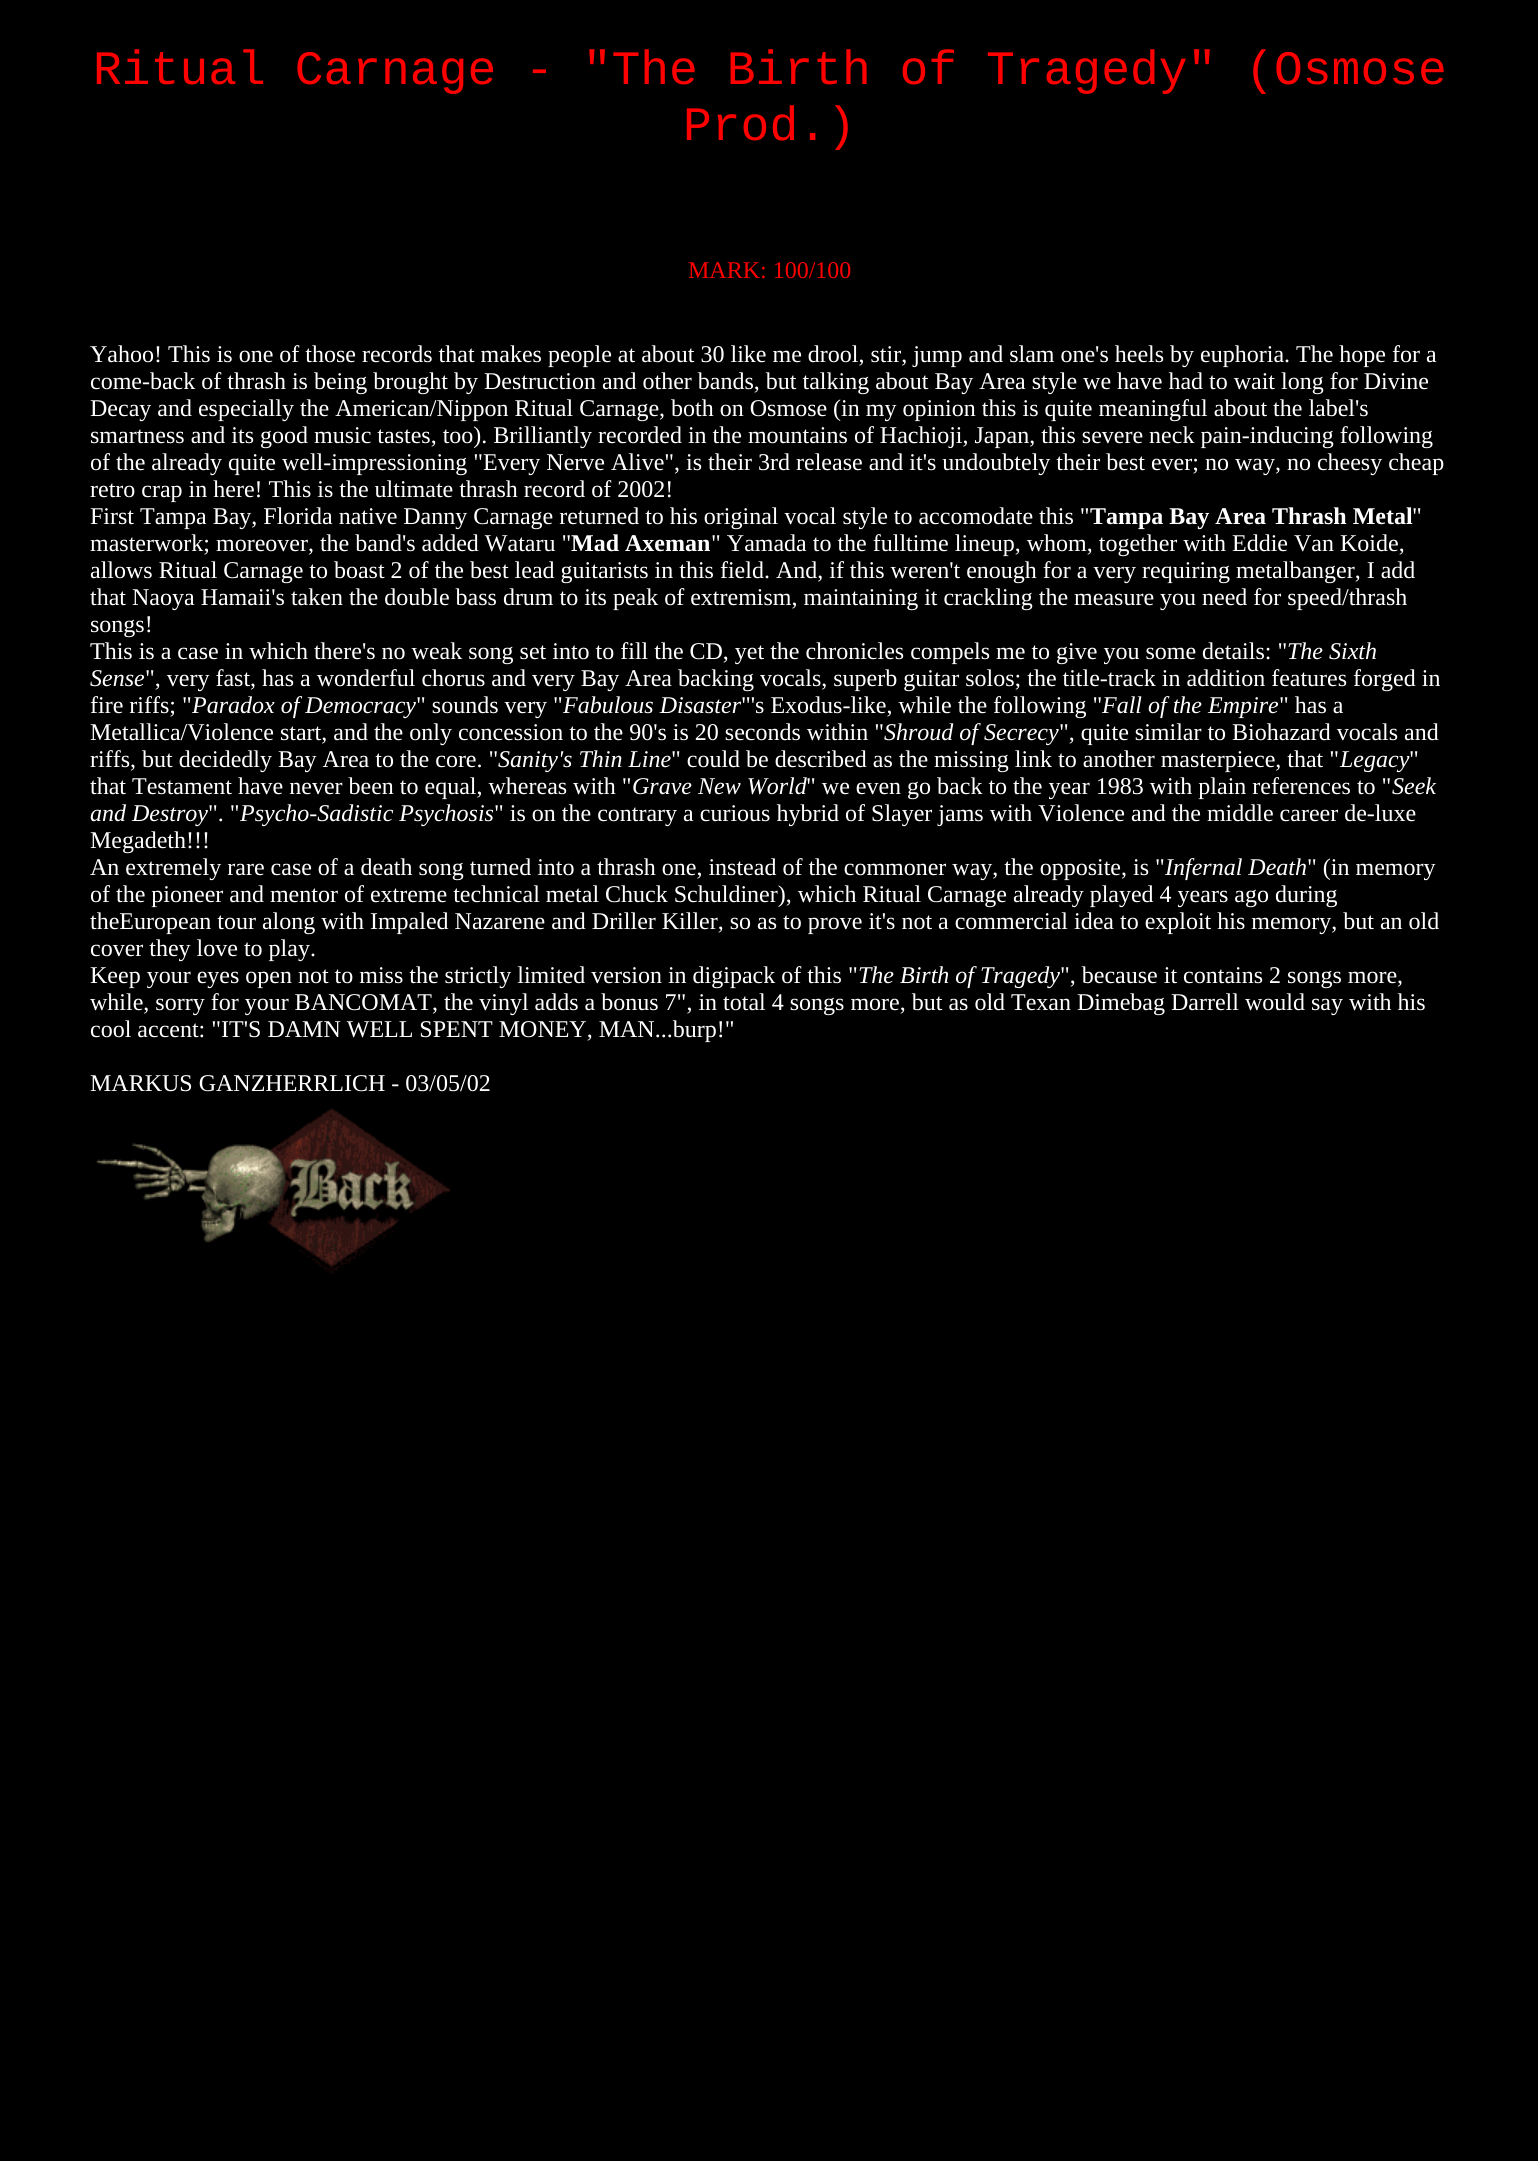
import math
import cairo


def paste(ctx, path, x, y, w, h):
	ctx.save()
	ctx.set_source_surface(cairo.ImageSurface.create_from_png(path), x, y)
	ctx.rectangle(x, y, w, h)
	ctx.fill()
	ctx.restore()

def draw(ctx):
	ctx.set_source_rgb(0, 0, 0)
	ctx.paint()
	ctx.select_font_face('Liberation Mono')
	ctx.set_font_size(48)
	ctx.set_source_rgb(1, 0, 0)
	ctx.move_to(93, 84)
	ctx.show_text('Ritual Carnage - "The Birth of Tragedy" (Osmose')
	ctx.move_to(683, 140)
	ctx.show_text('Prod.)')
	ctx.select_font_face('Liberation Serif')
	ctx.set_font_size(24)
	ctx.move_to(688, 278)
	ctx.show_text('MARK: 100/100')
	ctx.set_source_rgb(1, 1, 1)
	for x, y, s in [
		(90, 362, 'Yahoo! This is one of those records that makes people at about 30 like me drool, stir, jump and slam one\'s heels by euphoria. The hope for a'),
		(90, 389, 'come-back of thrash is being brought by Destruction and other bands, but talking about Bay Area style we have had to wait long for Divine'),
		(90, 416, 'Decay and especially the American/Nippon Ritual Carnage, both on Osmose (in my opinion this is quite meaningful about the label\'s'),
		(90, 443, 'smartness and its good music tastes, too). Brilliantly recorded in the mountains of Hachioji, Japan, this severe neck pain-inducing following'),
		(90, 470, 'of the already quite well-impressioning "Every Nerve Alive", is their 3rd release and it\'s undoubtely their best ever; no way, no cheesy cheap'),
		(90, 497, 'retro crap in here! This is the ultimate thrash record of 2002!'),
		(90, 524, 'First Tampa Bay, Florida native Danny Carnage returned to his original vocal style to accomodate this "'),
	]:
		ctx.move_to(x, y)
		ctx.show_text(s)
	ctx.select_font_face('Liberation Serif', cairo.FONT_SLANT_NORMAL, cairo.FONT_WEIGHT_BOLD)
	ctx.move_to(1090, 524)
	ctx.show_text('Tampa Bay Area Thrash Metal')
	ctx.select_font_face('Liberation Serif')
	ctx.move_to(1412, 524)
	ctx.show_text('"')
	ctx.move_to(90, 551)
	ctx.show_text('masterwork; moreover, the band\'s added Wataru "')
	ctx.select_font_face('Liberation Serif', cairo.FONT_SLANT_NORMAL, cairo.FONT_WEIGHT_BOLD)
	ctx.move_to(571, 551)
	ctx.show_text('Mad Axeman')
	ctx.select_font_face('Liberation Serif')
	for x, y, s in [
		(711, 551, '" Yamada to the fulltime lineup, whom, together with Eddie Van Koide,'),
		(90, 578, 'allows Ritual Carnage to boast 2 of the best lead guitarists in this field. And, if this weren\'t enough for a very requiring metalbanger, I add'),
		(90, 605, 'that Naoya Hamaii\'s taken the double bass drum to its peak of extremism, maintaining it crackling the measure you need for speed/thrash'),
		(90, 632, 'songs!'),
		(90, 659, 'This is a case in which there\'s no weak song set into to fill the CD, yet the chronicles compels me to give you some details: "'),
	]:
		ctx.move_to(x, y)
		ctx.show_text(s)
	ctx.select_font_face('Liberation Serif', cairo.FONT_SLANT_ITALIC)
	ctx.move_to(1287, 659)
	ctx.show_text('The Sixth')
	ctx.move_to(90, 686)
	ctx.show_text('Sense')
	ctx.select_font_face('Liberation Serif')
	ctx.move_to(145, 686)
	ctx.show_text('", very fast, has a wonderful chorus and very Bay Area backing vocals, superb guitar solos; the title-track in addition features forged in')
	ctx.move_to(90, 713)
	ctx.show_text('fire riffs; "')
	ctx.select_font_face('Liberation Serif', cairo.FONT_SLANT_ITALIC)
	ctx.move_to(192, 713)
	ctx.show_text('Paradox of Democracy')
	ctx.select_font_face('Liberation Serif')
	ctx.move_to(416, 713)
	ctx.show_text('" sounds very "')
	ctx.select_font_face('Liberation Serif', cairo.FONT_SLANT_ITALIC)
	ctx.move_to(563, 713)
	ctx.show_text('Fabulous Disaster')
	ctx.select_font_face('Liberation Serif')
	ctx.move_to(741, 713)
	ctx.show_text('"\'s Exodus-like, while the following "')
	ctx.select_font_face('Liberation Serif', cairo.FONT_SLANT_ITALIC)
	ctx.move_to(1102, 713)
	ctx.show_text('Fall of the Empire')
	ctx.select_font_face('Liberation Serif')
	ctx.move_to(1279, 713)
	ctx.show_text('" has a')
	ctx.move_to(90, 740)
	ctx.show_text('Metallica/Violence start, and the only concession to the 90\'s is 20 seconds within "')
	ctx.select_font_face('Liberation Serif', cairo.FONT_SLANT_ITALIC)
	ctx.move_to(884, 740)
	ctx.show_text('Shroud of Secrecy')
	ctx.select_font_face('Liberation Serif')
	ctx.move_to(1059, 740)
	ctx.show_text('", quite similar to Biohazard vocals and')
	ctx.move_to(90, 767)
	ctx.show_text('riffs, but decidedly Bay Area to the core. "')
	ctx.select_font_face('Liberation Serif', cairo.FONT_SLANT_ITALIC)
	ctx.move_to(498, 767)
	ctx.show_text('Sanity\'s Thin Line')
	ctx.select_font_face('Liberation Serif')
	ctx.move_to(671, 767)
	ctx.show_text('" could be described as the missing link to another masterpiece, that "')
	ctx.select_font_face('Liberation Serif', cairo.FONT_SLANT_ITALIC)
	ctx.move_to(1340, 767)
	ctx.show_text('Legacy')
	ctx.select_font_face('Liberation Serif')
	ctx.move_to(1409, 767)
	ctx.show_text('"')
	ctx.move_to(90, 794)
	ctx.show_text('that Testament have never been to equal, whereas with "')
	ctx.select_font_face('Liberation Serif', cairo.FONT_SLANT_ITALIC)
	ctx.move_to(632, 794)
	ctx.show_text('Grave New World')
	ctx.select_font_face('Liberation Serif')
	ctx.move_to(806, 794)
	ctx.show_text('" we even go back to the year 1983 with plain references to "')
	ctx.select_font_face('Liberation Serif', cairo.FONT_SLANT_ITALIC)
	ctx.move_to(1392, 794)
	ctx.show_text('Seek')
	ctx.move_to(90, 821)
	ctx.show_text('and Destroy')
	ctx.select_font_face('Liberation Serif')
	ctx.move_to(208, 821)
	ctx.show_text('". "')
	ctx.select_font_face('Liberation Serif', cairo.FONT_SLANT_ITALIC)
	ctx.move_to(240, 821)
	ctx.show_text('Psycho-Sadistic Psychosis')
	ctx.select_font_face('Liberation Serif')
	for x, y, s in [
		(494, 821, '" is on the contrary a curious hybrid of Slayer jams with Violence and the middle career de-luxe'),
		(90, 848, 'Megadeth!!!'),
		(90, 875, 'An extremely rare case of a death song turned into a thrash one, instead of the commoner way, the opposite, is "'),
	]:
		ctx.move_to(x, y)
		ctx.show_text(s)
	ctx.select_font_face('Liberation Serif', cairo.FONT_SLANT_ITALIC)
	ctx.move_to(1165, 875)
	ctx.show_text('Infernal Death')
	ctx.select_font_face('Liberation Serif')
	for x, y, s in [
		(1307, 875, '" (in memory'),
		(90, 902, 'of the pioneer and mentor of extreme technical metal Chuck Schuldiner), which Ritual Carnage already played 4 years ago during'),
		(90, 929, 'theEuropean tour along with Impaled Nazarene and Driller Killer, so as to prove it\'s not a commercial idea to exploit his memory, but an old'),
		(90, 956, 'cover they love to play.'),
		(90, 983, 'Keep your eyes open not to miss the strictly limited version in digipack of this "'),
	]:
		ctx.move_to(x, y)
		ctx.show_text(s)
	ctx.select_font_face('Liberation Serif', cairo.FONT_SLANT_ITALIC)
	ctx.move_to(858, 983)
	ctx.show_text('The Birth of Tragedy')
	ctx.select_font_face('Liberation Serif')
	for x, y, s in [
		(1060, 983, '", because it contains 2 songs more,'),
		(90, 1010, 'while, sorry for your BANCOMAT, the vinyl adds a bonus 7", in total 4 songs more, but as old Texan Dimebag Darrell would say with his'),
		(90, 1037, 'cool accent: "IT\'S DAMN WELL SPENT MONEY, MAN...burp!"'),
		(90, 1091, 'MARKUS GANZHERRLICH - 03/05/02'),
	]:
		ctx.move_to(x, y)
		ctx.show_text(s)
	paste(ctx, 'media/1.png', 96, 1108, 354, 166)


surface = cairo.ImageSurface(cairo.FORMAT_RGB24, 1538, 2161)
ctx = cairo.Context(surface)
options = cairo.FontOptions()
options.set_hint_metrics(cairo.HINT_METRICS_OFF)
options.set_hint_style(cairo.HINT_STYLE_NONE)
ctx.set_font_options(options)
ctx.set_miter_limit(4)
draw(ctx)
surface.write_to_png('image.png')
